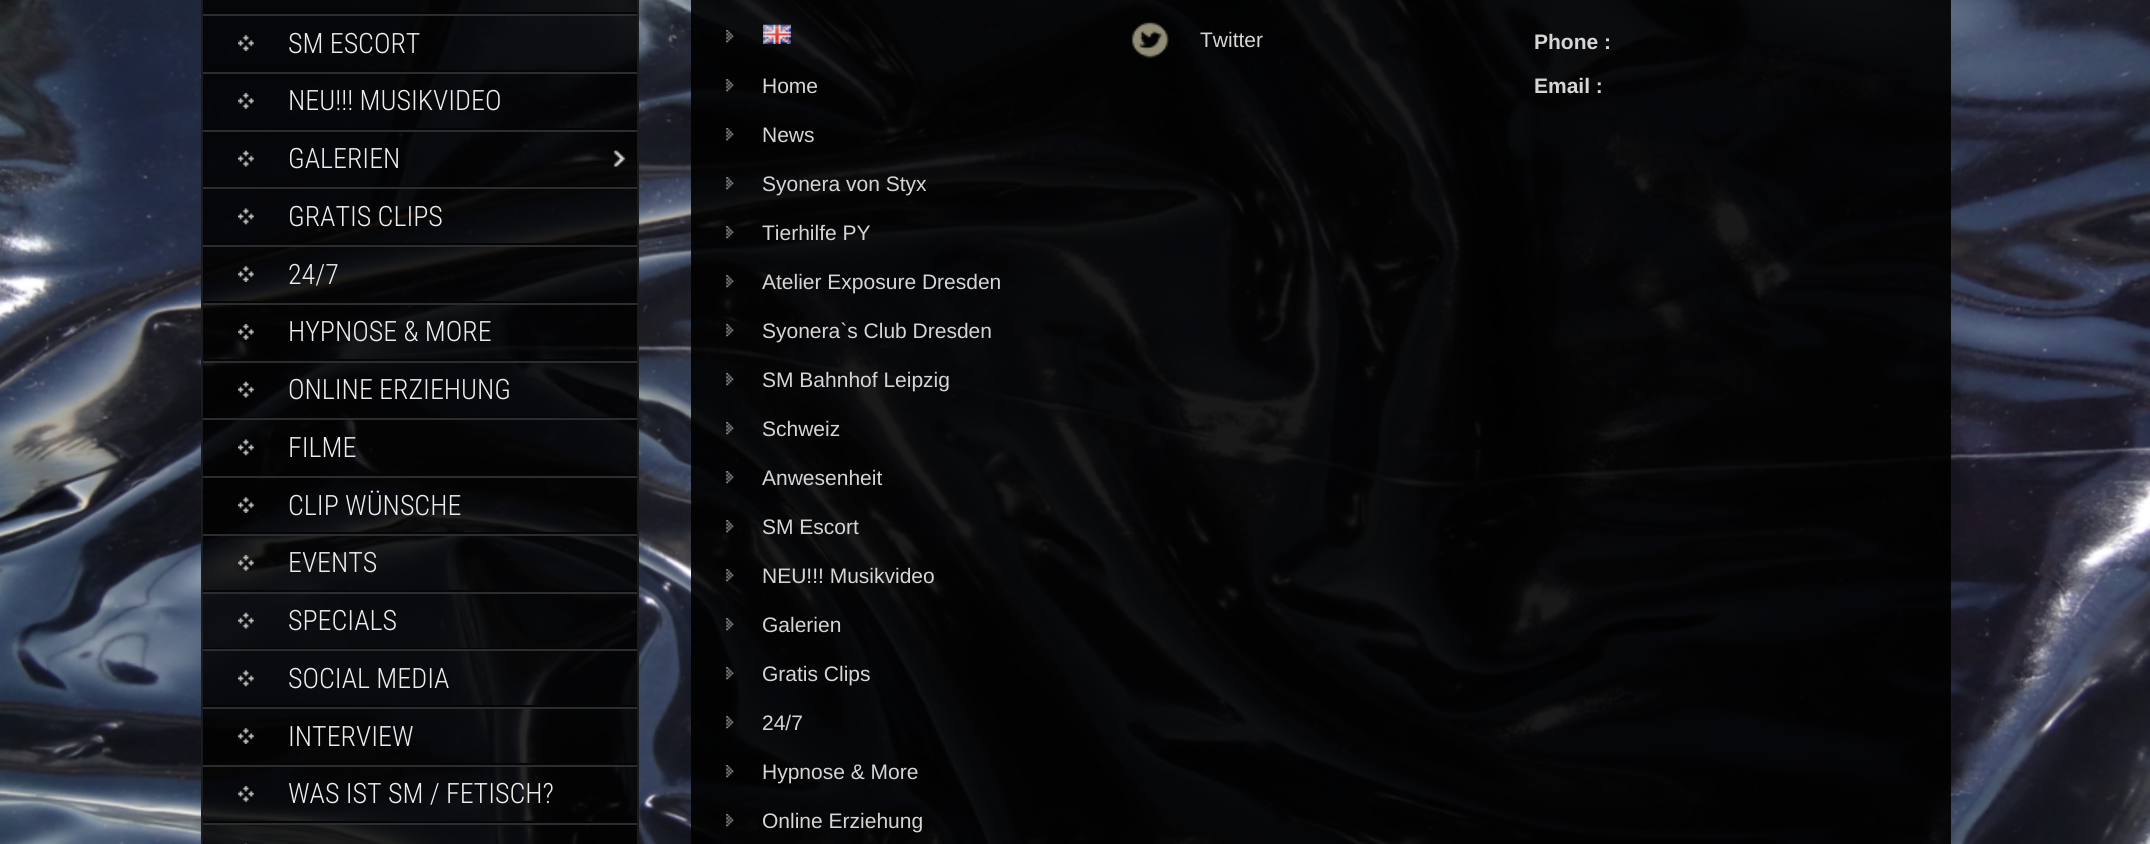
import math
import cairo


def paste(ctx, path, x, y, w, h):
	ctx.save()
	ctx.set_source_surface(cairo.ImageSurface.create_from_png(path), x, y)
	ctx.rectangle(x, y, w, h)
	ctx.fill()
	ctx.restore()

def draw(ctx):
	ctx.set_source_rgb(1, 1, 1)
	ctx.paint()
	paste(ctx, 'media/1.png', 0, 0, 2150, 844)
	ctx.set_source_rgb(0.106, 0.106, 0.106)
	ctx.rectangle(637, 0, 2, 844)
	ctx.rectangle(201, 0, 2, 844)
	ctx.fill()
	ctx.set_source_rgba(0, 0, 0, 0.85)
	ctx.rectangle(203, 0, 434, 844)
	ctx.fill()
	ctx.set_source_rgb(0.016, 0.02, 0.024)
	ctx.rectangle(203, 12, 434, 2)
	ctx.fill()
	ctx.set_source_rgb(0.173, 0.176, 0.18)
	ctx.rectangle(203, 14, 434, 2)
	ctx.fill()
	ctx.set_source_rgb(0.016, 0.02, 0.024)
	ctx.rectangle(203, 70, 413, 2)
	ctx.fill()
	paste(ctx, 'media/2.png', 238, 35, 16, 16)
	ctx.select_font_face('Roboto Condensed Light')
	ctx.set_font_size(28)
	ctx.set_source_rgb(0.933, 0.929, 0.929)
	ctx.move_to(288, 53)
	ctx.show_text('SM ESCORT')
	ctx.set_source_rgb(0.173, 0.176, 0.18)
	ctx.rectangle(203, 72, 434, 2)
	ctx.fill()
	ctx.set_source_rgb(0.016, 0.02, 0.024)
	ctx.rectangle(203, 128, 400, 2)
	ctx.fill()
	paste(ctx, 'media/3.png', 238, 93, 16, 16)
	ctx.set_source_rgb(0.933, 0.929, 0.929)
	ctx.move_to(288, 110)
	ctx.show_text('NEU!!! MUSIKVIDEO')
	paste(ctx, 'media/4.png', 613, 150, 13, 17)
	ctx.set_source_rgb(0.173, 0.176, 0.18)
	ctx.rectangle(203, 130, 434, 2)
	ctx.fill()
	ctx.set_source_rgb(0.016, 0.02, 0.024)
	ctx.rectangle(203, 186, 434, 1)
	ctx.fill()
	paste(ctx, 'media/5.png', 238, 150, 16, 17)
	ctx.set_source_rgb(0.933, 0.929, 0.929)
	ctx.move_to(288, 168)
	ctx.show_text('GALERIEN')
	ctx.set_source_rgb(0.173, 0.176, 0.18)
	ctx.rectangle(203, 187, 434, 2)
	ctx.fill()
	ctx.set_source_rgb(0.016, 0.02, 0.024)
	ctx.rectangle(203, 243, 434, 2)
	ctx.fill()
	paste(ctx, 'media/6.png', 238, 208, 16, 17)
	ctx.set_source_rgb(0.933, 0.929, 0.929)
	ctx.move_to(288, 226)
	ctx.show_text('GRATIS CLIPS')
	ctx.set_source_rgb(0.173, 0.176, 0.18)
	ctx.rectangle(203, 245, 434, 2)
	ctx.fill()
	ctx.set_source_rgb(0.016, 0.02, 0.024)
	ctx.rectangle(203, 301, 329, 2)
	ctx.fill()
	paste(ctx, 'media/7.png', 238, 266, 16, 16)
	ctx.set_source_rgb(0.933, 0.929, 0.929)
	ctx.move_to(288, 284)
	ctx.show_text('24/7')
	ctx.set_source_rgb(0.173, 0.176, 0.18)
	ctx.rectangle(203, 303, 434, 2)
	ctx.fill()
	ctx.set_source_rgb(0.016, 0.02, 0.024)
	ctx.rectangle(203, 359, 434, 2)
	ctx.fill()
	paste(ctx, 'media/8.png', 238, 324, 16, 16)
	ctx.set_source_rgb(0.933, 0.929, 0.929)
	ctx.move_to(288, 341)
	ctx.show_text('HYPNOSE & MORE')
	ctx.set_source_rgb(0.173, 0.176, 0.18)
	ctx.rectangle(203, 361, 434, 2)
	ctx.fill()
	ctx.set_source_rgb(0.016, 0.02, 0.024)
	ctx.rectangle(238, 417, 378, 1)
	ctx.fill()
	paste(ctx, 'media/9.png', 238, 381, 16, 17)
	ctx.set_source_rgb(0.933, 0.929, 0.929)
	ctx.move_to(288, 399)
	ctx.show_text('ONLINE ERZIEHUNG')
	ctx.set_source_rgb(0.173, 0.176, 0.18)
	ctx.rectangle(203, 418, 434, 2)
	ctx.fill()
	ctx.set_source_rgb(0.016, 0.02, 0.024)
	ctx.rectangle(370, 474, 267, 2)
	ctx.fill()
	paste(ctx, 'media/10.png', 238, 439, 16, 17)
	ctx.set_source_rgb(0.933, 0.929, 0.929)
	ctx.move_to(288, 457)
	ctx.show_text('FILME')
	ctx.set_source_rgb(0.173, 0.176, 0.18)
	ctx.rectangle(203, 476, 434, 2)
	ctx.fill()
	ctx.set_source_rgb(0.016, 0.02, 0.024)
	ctx.rectangle(226, 532, 411, 2)
	ctx.fill()
	paste(ctx, 'media/11.png', 238, 497, 16, 16)
	ctx.set_source_rgb(0.933, 0.929, 0.929)
	ctx.move_to(288, 515)
	ctx.show_text('CLIP WÜNSCHE')
	ctx.set_source_rgb(0.173, 0.176, 0.18)
	ctx.rectangle(203, 534, 434, 2)
	ctx.fill()
	ctx.set_source_rgb(0.016, 0.02, 0.024)
	ctx.rectangle(203, 590, 434, 2)
	ctx.fill()
	paste(ctx, 'media/12.png', 238, 555, 16, 16)
	ctx.set_source_rgb(0.933, 0.929, 0.929)
	ctx.move_to(288, 572)
	ctx.show_text('EVENTS')
	ctx.set_source_rgb(0.173, 0.176, 0.18)
	ctx.rectangle(203, 592, 434, 2)
	ctx.fill()
	ctx.set_source_rgb(0.016, 0.02, 0.024)
	ctx.rectangle(203, 648, 404, 1)
	ctx.fill()
	paste(ctx, 'media/13.png', 238, 612, 16, 17)
	ctx.set_source_rgb(0.933, 0.929, 0.929)
	ctx.move_to(288, 630)
	ctx.show_text('SPECIALS')
	ctx.set_source_rgb(0.173, 0.176, 0.18)
	ctx.rectangle(203, 649, 434, 2)
	ctx.fill()
	ctx.set_source_rgb(0.016, 0.02, 0.024)
	ctx.rectangle(203, 705, 434, 2)
	ctx.fill()
	paste(ctx, 'media/14.png', 238, 670, 16, 17)
	ctx.set_source_rgb(0.933, 0.929, 0.929)
	ctx.move_to(288, 688)
	ctx.show_text('SOCIAL MEDIA')
	ctx.set_source_rgb(0.173, 0.176, 0.18)
	ctx.rectangle(203, 707, 434, 2)
	ctx.fill()
	ctx.set_source_rgb(0.016, 0.02, 0.024)
	ctx.rectangle(281, 763, 356, 2)
	ctx.fill()
	paste(ctx, 'media/15.png', 238, 728, 16, 16)
	ctx.set_source_rgb(0.933, 0.929, 0.929)
	ctx.move_to(288, 746)
	ctx.show_text('INTERVIEW')
	ctx.set_source_rgb(0.173, 0.176, 0.18)
	ctx.rectangle(203, 765, 434, 2)
	ctx.fill()
	ctx.set_source_rgb(0.016, 0.02, 0.024)
	ctx.rectangle(203, 821, 434, 2)
	ctx.fill()
	paste(ctx, 'media/16.png', 238, 786, 16, 16)
	ctx.set_source_rgb(0.933, 0.929, 0.929)
	ctx.move_to(288, 803)
	ctx.show_text('WAS IST SM / FETISCH?')
	ctx.set_source_rgb(0.173, 0.176, 0.18)
	ctx.rectangle(203, 823, 434, 2)
	ctx.fill()
	paste(ctx, 'media/17.png', 244, 843, 4, 1)
	ctx.set_source_rgba(0, 0, 0, 0.9)
	ctx.rectangle(691, 0, 1260, 844)
	ctx.fill()
	paste(ctx, 'media/18.png', 1131, 21, 38, 37)
	ctx.select_font_face('Liberation Sans')
	ctx.set_font_size(21)
	ctx.set_source_rgb(0.839, 0.839, 0.839)
	ctx.move_to(1200, 47)
	ctx.show_text('Twitter')
	ctx.select_font_face('Liberation Sans', cairo.FONT_SLANT_NORMAL, cairo.FONT_WEIGHT_BOLD)
	ctx.move_to(1534, 49)
	ctx.show_text('Phone :')
	ctx.move_to(1534, 93)
	ctx.show_text('Email :')
	paste(ctx, 'media/19.png', 726, 30, 8, 13)
	paste(ctx, 'media/20.png', 763, 24, 28, 20)
	paste(ctx, 'media/21.png', 726, 79, 8, 13)
	ctx.select_font_face('Liberation Sans')
	ctx.move_to(762, 93)
	ctx.show_text('Home')
	paste(ctx, 'media/22.png', 726, 128, 8, 13)
	ctx.move_to(762, 142)
	ctx.show_text('News')
	paste(ctx, 'media/23.png', 726, 177, 8, 13)
	ctx.move_to(762, 191)
	ctx.show_text('Syonera von Styx')
	paste(ctx, 'media/24.png', 726, 226, 8, 13)
	ctx.move_to(762, 240)
	ctx.show_text('Tierhilfe PY')
	paste(ctx, 'media/25.png', 726, 275, 8, 13)
	ctx.move_to(762, 289)
	ctx.show_text('Atelier Exposure Dresden')
	paste(ctx, 'media/26.png', 726, 324, 8, 13)
	ctx.move_to(762, 338)
	ctx.show_text('Syonera`s Club Dresden')
	paste(ctx, 'media/27.png', 726, 373, 8, 13)
	ctx.move_to(762, 387)
	ctx.show_text('SM Bahnhof Leipzig')
	paste(ctx, 'media/28.png', 726, 422, 8, 13)
	ctx.move_to(762, 436)
	ctx.show_text('Schweiz')
	paste(ctx, 'media/29.png', 726, 471, 8, 13)
	ctx.move_to(762, 485)
	ctx.show_text('Anwesenheit')
	paste(ctx, 'media/30.png', 726, 520, 8, 13)
	ctx.move_to(762, 534)
	ctx.show_text('SM Escort')
	paste(ctx, 'media/31.png', 726, 569, 8, 13)
	ctx.move_to(762, 583)
	ctx.show_text('NEU!!! Musikvideo')
	paste(ctx, 'media/32.png', 726, 618, 8, 13)
	ctx.move_to(762, 632)
	ctx.show_text('Galerien')
	paste(ctx, 'media/33.png', 726, 667, 8, 13)
	ctx.move_to(762, 681)
	ctx.show_text('Gratis Clips')
	paste(ctx, 'media/34.png', 726, 716, 8, 13)
	ctx.move_to(762, 730)
	ctx.show_text('24/7')
	paste(ctx, 'media/35.png', 726, 765, 8, 13)
	ctx.move_to(762, 779)
	ctx.show_text('Hypnose & More')
	paste(ctx, 'media/36.png', 726, 814, 8, 13)
	ctx.move_to(762, 828)
	ctx.show_text('Online Erziehung')


surface = cairo.ImageSurface(cairo.FORMAT_RGB24, 2150, 844)
ctx = cairo.Context(surface)
options = cairo.FontOptions()
options.set_hint_metrics(cairo.HINT_METRICS_OFF)
options.set_hint_style(cairo.HINT_STYLE_NONE)
ctx.set_font_options(options)
ctx.set_miter_limit(4)
draw(ctx)
surface.write_to_png('image.png')
